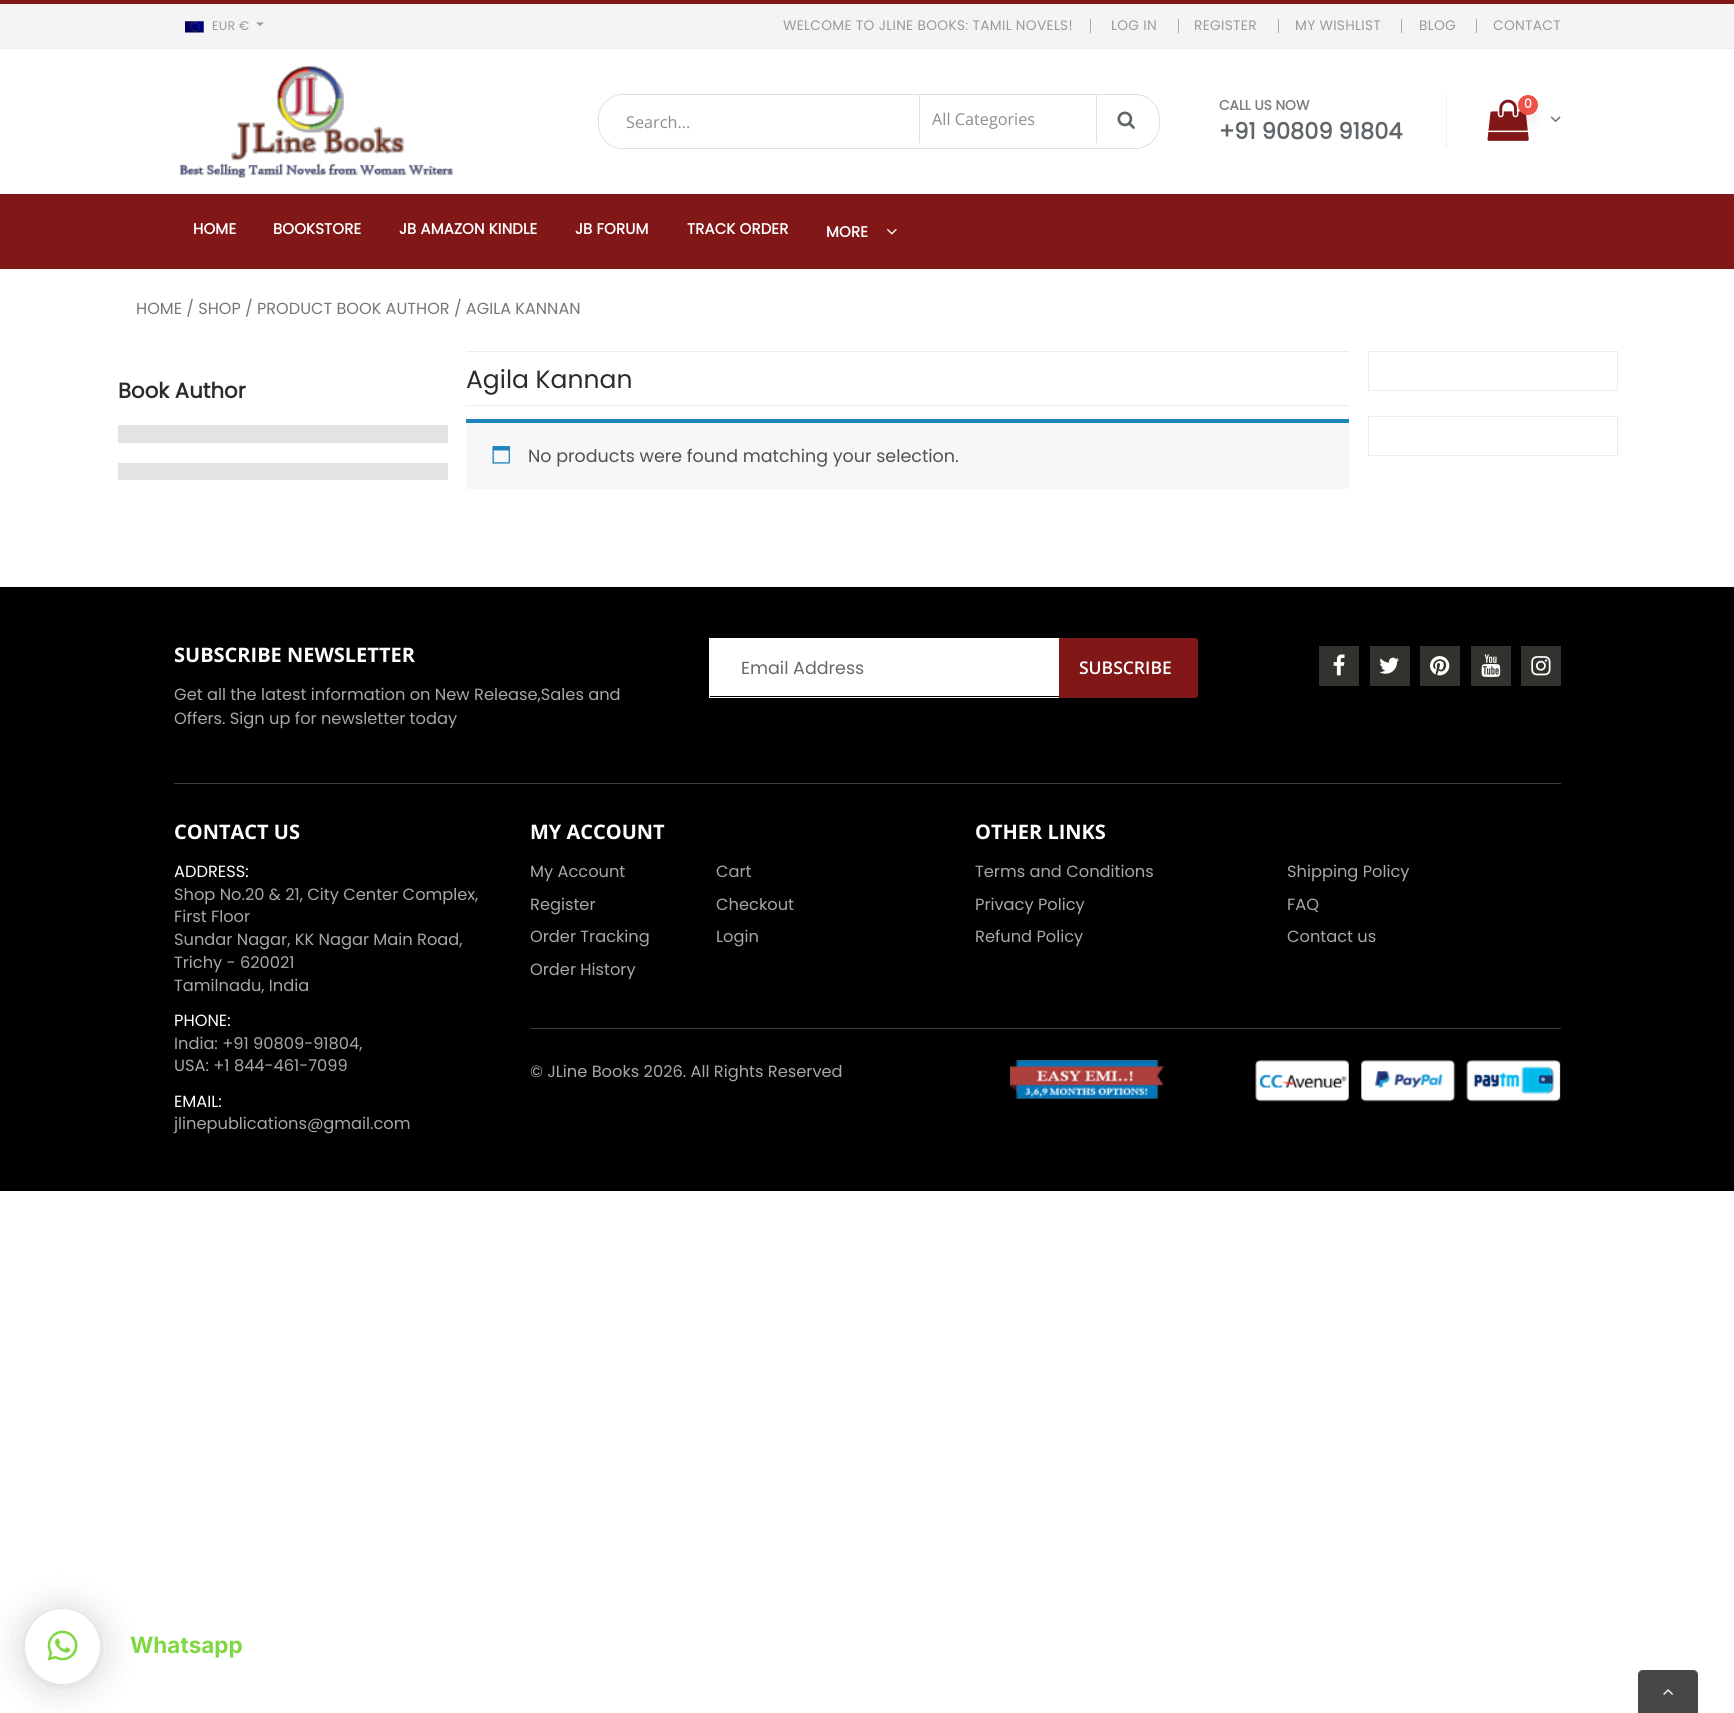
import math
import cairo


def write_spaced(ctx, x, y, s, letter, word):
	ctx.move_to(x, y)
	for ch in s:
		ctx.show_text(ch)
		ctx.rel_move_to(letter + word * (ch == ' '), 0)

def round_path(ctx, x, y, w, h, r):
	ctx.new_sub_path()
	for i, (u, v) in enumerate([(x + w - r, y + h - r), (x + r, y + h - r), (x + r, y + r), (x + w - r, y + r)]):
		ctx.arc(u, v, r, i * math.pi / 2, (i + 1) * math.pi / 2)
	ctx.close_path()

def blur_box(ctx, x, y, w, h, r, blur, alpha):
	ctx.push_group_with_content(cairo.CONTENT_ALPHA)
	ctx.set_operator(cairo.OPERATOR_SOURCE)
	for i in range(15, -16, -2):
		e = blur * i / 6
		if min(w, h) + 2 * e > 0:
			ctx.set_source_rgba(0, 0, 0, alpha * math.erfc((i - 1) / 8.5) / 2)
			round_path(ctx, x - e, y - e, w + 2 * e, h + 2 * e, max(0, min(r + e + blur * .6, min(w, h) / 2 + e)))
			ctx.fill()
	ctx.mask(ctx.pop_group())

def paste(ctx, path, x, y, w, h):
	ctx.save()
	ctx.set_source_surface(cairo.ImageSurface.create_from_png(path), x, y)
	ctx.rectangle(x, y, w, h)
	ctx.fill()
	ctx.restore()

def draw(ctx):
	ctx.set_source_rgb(1, 1, 1)
	ctx.paint()
	ctx.set_source_rgb(0.51, 0.09, 0.09)
	ctx.rectangle(0, 0, 1734, 4)
	ctx.fill()
	ctx.set_source_rgb(0.957, 0.957, 0.957)
	ctx.rectangle(0, 4, 1734, 44)
	ctx.fill()
	ctx.set_source_rgb(0.929, 0.929, 0.929)
	ctx.rectangle(0, 48, 1734, 1)
	ctx.fill()
	paste(ctx, 'media/1.png', 185, 21, 19, 12)
	ctx.select_font_face('Poppins')
	ctx.set_font_size(12.5)
	ctx.set_source_rgb(0.6, 0.6, 0.6)
	write_spaced(ctx, 212, 30, 'EUR €', 0.3, 0)
	ctx.new_path()
	ctx.move_to(256, 22.5)
	ctx.line_to(264, 22.5)
	ctx.line_to(260, 26)
	ctx.close_path()
	ctx.fill()
	ctx.set_font_size(13.75)
	write_spaced(ctx, 783, 30, 'WELCOME TO JLINE BOOKS: TAMIL NOVELS!', 0.3, 0)
	ctx.set_source_rgb(0.671, 0.671, 0.671)
	ctx.rectangle(1090, 19, 1, 14)
	ctx.fill()
	ctx.set_source_rgb(0.6, 0.6, 0.6)
	write_spaced(ctx, 1111, 30, 'LOG IN', 0.3, 0)
	ctx.set_source_rgb(0.671, 0.671, 0.671)
	ctx.rectangle(1178, 19, 1, 14)
	ctx.fill()
	ctx.set_source_rgb(0.6, 0.6, 0.6)
	write_spaced(ctx, 1194, 30, 'REGISTER', 0.3, 0)
	ctx.set_source_rgb(0.671, 0.671, 0.671)
	ctx.rectangle(1278, 19, 1, 14)
	ctx.fill()
	ctx.set_source_rgb(0.6, 0.6, 0.6)
	write_spaced(ctx, 1295, 30, 'MY WISHLIST', 0.3, 0)
	ctx.set_source_rgb(0.671, 0.671, 0.671)
	ctx.rectangle(1401, 19, 1, 14)
	ctx.fill()
	ctx.set_source_rgb(0.6, 0.6, 0.6)
	write_spaced(ctx, 1419, 30, 'BLOG', 0.3, 0)
	ctx.set_source_rgb(0.671, 0.671, 0.671)
	ctx.rectangle(1476, 19, 1, 14)
	ctx.fill()
	ctx.set_source_rgb(0.6, 0.6, 0.6)
	write_spaced(ctx, 1493, 30, 'CONTACT', 0.3, 0)
	paste(ctx, 'media/2.png', 179, 66, 274, 112)
	round_path(ctx, 598.5, 94.5, 561, 54, 24.5)
	ctx.set_source_rgb(0.859, 0.878, 0.886)
	ctx.set_line_width(1)
	ctx.stroke()
	ctx.set_source_rgb(1, 1, 1)
	ctx.new_path()
	ctx.move_to(624, 95)
	ctx.line_to(919, 95)
	ctx.line_to(919, 148)
	ctx.line_to(624, 148)
	ctx.curve_to(610, 148, 599, 137, 599, 123)
	ctx.line_to(599, 120)
	ctx.curve_to(599, 106, 610, 95, 624, 95)
	ctx.close_path()
	ctx.fill()
	ctx.select_font_face('Open Sans')
	ctx.set_font_size(16.25)
	ctx.set_source_rgb(0.553, 0.553, 0.553)
	ctx.move_to(626, 128)
	ctx.show_text('Search...')
	ctx.set_source_rgb(0.859, 0.878, 0.886)
	ctx.rectangle(919, 95, 1, 48)
	ctx.fill()
	ctx.set_source_rgb(0.553, 0.553, 0.553)
	ctx.move_to(932, 125)
	ctx.show_text('All Categories')
	ctx.set_source_rgb(0.859, 0.878, 0.886)
	ctx.rectangle(1096, 95, 1, 48)
	ctx.fill()
	paste(ctx, 'media/3.png', 1117, 111, 18, 18)
	ctx.select_font_face('Poppins', cairo.FONT_SLANT_NORMAL, cairo.FONT_WEIGHT_BOLD)
	ctx.set_font_size(13.75)
	ctx.set_source_rgb(0.471, 0.49, 0.498)
	ctx.move_to(1219, 110)
	ctx.show_text('CALL US NOW')
	ctx.set_source_rgb(0.937, 0.937, 0.937)
	ctx.rectangle(1446, 94, 1, 54)
	ctx.fill()
	ctx.set_font_size(22.5)
	ctx.set_source_rgb(0.376, 0.4, 0.412)
	ctx.move_to(1219, 139)
	ctx.show_text('+91 90809 91804')
	paste(ctx, 'media/4.png', 1487, 99, 42, 42)
	ctx.set_source_rgb(0, 0, 0)
	blur_box(ctx, 1518, 104, 20, 20, 10, 5, 0.05)
	ctx.set_source_rgb(0.929, 0.325, 0.282)
	ctx.arc(1528, 105, 10, 0, 2 * math.pi)
	ctx.fill()
	ctx.set_font_size(12.5)
	ctx.set_source_rgb(1, 1, 1)
	ctx.move_to(1524, 108)
	ctx.show_text('0')
	paste(ctx, 'media/5.png', 1550, 116, 11, 6)
	ctx.set_source_rgb(0.51, 0.09, 0.09)
	ctx.rectangle(0, 194, 1734, 75)
	ctx.fill()
	ctx.set_font_size(15)
	ctx.set_source_rgb(1, 1, 1)
	for x, y, s in [
		(193, 234, 'HOME'),
		(273, 234, 'BOOKSTORE'),
		(399, 234, 'JB AMAZON KINDLE'),
		(575, 234, 'JB FORUM'),
		(687, 234, 'TRACK ORDER'),
		(826, 237, 'MORE'),
	]:
		write_spaced(ctx, x, y, s, 0.1, 0)
	paste(ctx, 'media/6.png', 887, 228, 10, 7)
	ctx.select_font_face('Poppins')
	ctx.set_font_size(16.1)
	ctx.set_source_rgb(0.463, 0.463, 0.463)
	ctx.move_to(136, 314)
	ctx.show_text('HOME / SHOP / PRODUCT BOOK AUTHOR / AGILA KANNAN')
	ctx.select_font_face('Poppins', cairo.FONT_SLANT_NORMAL, cairo.FONT_WEIGHT_BOLD)
	ctx.set_font_size(21.25)
	ctx.set_source_rgb(0.169, 0.169, 0.176)
	ctx.move_to(118, 398)
	ctx.show_text('Book Author')
	ctx.set_source_rgb(0.89, 0.89, 0.89)
	ctx.rectangle(118, 425, 330, 18)
	ctx.rectangle(118, 463, 330, 17)
	ctx.fill()
	ctx.set_source_rgb(0.922, 0.922, 0.922)
	ctx.rectangle(466, 351, 883, 1)
	ctx.rectangle(466, 405, 883, 1)
	ctx.fill()
	ctx.select_font_face('Poppins')
	ctx.set_font_size(25)
	ctx.set_source_rgb(0.169, 0.169, 0.176)
	ctx.move_to(466, 388)
	ctx.show_text('Agila Kannan')
	ctx.set_source_rgb(0.965, 0.961, 0.973)
	ctx.rectangle(466, 423, 883, 66)
	ctx.fill()
	ctx.set_source_rgb(0.118, 0.522, 0.745)
	ctx.rectangle(466, 419, 883, 4)
	ctx.fill()
	paste(ctx, 'media/7.png', 492, 446, 18, 18)
	ctx.set_font_size(17.5)
	ctx.set_source_rgb(0.318, 0.318, 0.318)
	ctx.move_to(528, 462)
	ctx.show_text('No products were found matching your selection.')
	ctx.rectangle(1368.5, 351.5, 249, 39)
	ctx.set_source_rgb(0.922, 0.922, 0.922)
	ctx.stroke()
	ctx.rectangle(1368.5, 416.5, 249, 39)
	ctx.stroke()
	ctx.set_source_rgb(0, 0, 0)
	ctx.rectangle(0, 587, 1734, 604)
	ctx.fill()
	ctx.set_source_rgb(0.239, 0.239, 0.22)
	ctx.rectangle(174, 783, 1387, 1)
	ctx.fill()
	ctx.select_font_face('Open Sans', cairo.FONT_SLANT_NORMAL, cairo.FONT_WEIGHT_BOLD)
	ctx.set_font_size(20)
	ctx.set_source_rgb(1, 1, 1)
	ctx.move_to(174, 662)
	ctx.show_text('SUBSCRIBE NEWSLETTER')
	ctx.select_font_face('Poppins')
	ctx.set_font_size(16.25)
	ctx.set_source_rgb(0.659, 0.659, 0.659)
	ctx.move_to(174, 700)
	ctx.show_text('Get all the latest information on New Release,Sales and')
	ctx.move_to(174, 724)
	ctx.show_text('Offers. Sign up for newsletter today')
	ctx.set_source_rgb(1, 1, 1)
	ctx.rectangle(710, 639, 349, 57)
	ctx.fill()
	ctx.rectangle(709.5, 638.5, 449, 59)
	ctx.stroke()
	ctx.set_font_size(17.5)
	ctx.set_source_rgb(0.408, 0.408, 0.396)
	ctx.move_to(741, 674)
	ctx.show_text('Email Address')
	ctx.set_source_rgb(0.51, 0.09, 0.09)
	ctx.new_path()
	ctx.move_to(1059.5, 638.5)
	ctx.line_to(1195, 638.5)
	ctx.curve_to(1196.5, 638.5, 1197.5, 639.5, 1197.5, 641)
	ctx.line_to(1197.5, 695)
	ctx.curve_to(1197.5, 696.5, 1196.5, 697.5, 1195, 697.5)
	ctx.line_to(1059.5, 697.5)
	ctx.close_path()
	ctx.fill_preserve()
	ctx.stroke()
	ctx.select_font_face('Open Sans SemiBold')
	ctx.set_source_rgb(1, 1, 1)
	ctx.move_to(1079, 674)
	ctx.show_text('SUBSCRIBE')
	ctx.set_source_rgb(0.196, 0.196, 0.184)
	ctx.rectangle(1319, 646, 40, 40)
	ctx.fill()
	paste(ctx, 'media/8.png', 1333, 654, 12, 22)
	ctx.rectangle(1370, 646, 40, 40)
	ctx.fill()
	paste(ctx, 'media/9.png', 1379, 657, 20, 17)
	ctx.rectangle(1420, 646, 40, 40)
	ctx.fill()
	paste(ctx, 'media/10.png', 1430, 656, 20, 20)
	ctx.rectangle(1471, 646, 40, 40)
	ctx.fill()
	paste(ctx, 'media/11.png', 1481, 654, 20, 23)
	ctx.rectangle(1521, 646, 40, 40)
	ctx.fill()
	paste(ctx, 'media/12.png', 1531, 656, 20, 20)
	ctx.select_font_face('Open Sans', cairo.FONT_SLANT_NORMAL, cairo.FONT_WEIGHT_BOLD)
	ctx.set_font_size(20)
	ctx.set_source_rgb(1, 1, 1)
	ctx.move_to(174, 839)
	ctx.show_text('CONTACT US')
	ctx.select_font_face('Poppins')
	ctx.set_font_size(16.25)
	ctx.move_to(174, 877)
	ctx.show_text('ADDRESS:')
	ctx.set_source_rgb(0.659, 0.659, 0.659)
	for x, y, s in [
		(174, 900, 'Shop No.20 & 21, City Center Complex,'),
		(174, 922, 'First Floor'),
		(174, 945, 'Sundar Nagar, KK Nagar Main Road,'),
		(174, 968, 'Trichy - 620021'),
		(174, 991, 'Tamilnadu, India'),
	]:
		ctx.move_to(x, y)
		ctx.show_text(s)
	ctx.set_source_rgb(1, 1, 1)
	ctx.move_to(174, 1026)
	ctx.show_text('PHONE:')
	ctx.set_source_rgb(0.659, 0.659, 0.659)
	ctx.move_to(174, 1049)
	ctx.show_text('India: +91 90809-91804,')
	ctx.move_to(174, 1071)
	ctx.show_text('USA: +1 844-461-7099')
	ctx.set_source_rgb(1, 1, 1)
	ctx.move_to(174, 1107)
	ctx.show_text('EMAIL:')
	ctx.set_source_rgb(0.659, 0.659, 0.659)
	ctx.move_to(174, 1129)
	ctx.show_text('jlinepublications@gmail.com')
	ctx.select_font_face('Open Sans', cairo.FONT_SLANT_NORMAL, cairo.FONT_WEIGHT_BOLD)
	ctx.set_font_size(20)
	ctx.set_source_rgb(1, 1, 1)
	ctx.move_to(530, 839)
	ctx.show_text('MY ACCOUNT')
	ctx.select_font_face('Poppins')
	ctx.set_font_size(16.25)
	ctx.set_source_rgb(0.659, 0.659, 0.659)
	for x, y, s in [
		(530, 877, 'My Account'),
		(530, 910, 'Register'),
		(530, 942, 'Order Tracking'),
		(530, 975, 'Order History'),
		(716, 877, 'Cart'),
		(716, 910, 'Checkout'),
		(716, 942, 'Login'),
	]:
		ctx.move_to(x, y)
		ctx.show_text(s)
	ctx.select_font_face('Open Sans', cairo.FONT_SLANT_NORMAL, cairo.FONT_WEIGHT_BOLD)
	ctx.set_font_size(20)
	ctx.set_source_rgb(1, 1, 1)
	ctx.move_to(975, 839)
	ctx.show_text('OTHER LINKS')
	ctx.select_font_face('Poppins')
	ctx.set_font_size(16.25)
	ctx.set_source_rgb(0.659, 0.659, 0.659)
	for x, y, s in [
		(975, 877, 'Terms and Conditions'),
		(975, 910, 'Privacy Policy'),
		(975, 942, 'Refund Policy'),
		(1287, 877, 'Shipping Policy'),
		(1287, 910, 'FAQ'),
		(1287, 942, 'Contact us'),
	]:
		ctx.move_to(x, y)
		ctx.show_text(s)
	ctx.set_source_rgb(0.239, 0.239, 0.22)
	ctx.rectangle(530, 1028, 1031, 1)
	ctx.fill()
	ctx.set_source_rgb(0.659, 0.659, 0.659)
	ctx.move_to(530, 1077)
	ctx.show_text('© JLine Books 2026. All Rights Reserved')
	paste(ctx, 'media/13.png', 1010, 1060, 154, 39)
	paste(ctx, 'media/14.png', 1255, 1060, 306, 42)
	ctx.set_source_rgb(0, 0, 0)
	blur_box(ctx, 25, 1611, 75, 75, 37.5, 20, 0.16)
	blur_box(ctx, 25, 1610, 75, 75, 37.5, 4, 0.06)
	ctx.set_source_rgb(1, 1, 1)
	ctx.arc(62.5, 1646.5, 37.5, 0, 2 * math.pi)
	ctx.fill()
	paste(ctx, 'media/15.png', 47, 1630, 31, 31)
	ctx.select_font_face('Inter', cairo.FONT_SLANT_NORMAL, cairo.FONT_WEIGHT_BOLD)
	ctx.set_font_size(22.5)
	ctx.set_source_rgb(0.506, 0.843, 0.259)
	ctx.move_to(130, 1653)
	ctx.show_text('Whatsapp')
	ctx.set_source_rgb(0.278, 0.278, 0.278)
	ctx.new_path()
	ctx.move_to(1643, 1670)
	ctx.line_to(1693, 1670)
	ctx.curve_to(1696, 1670, 1698, 1672, 1698, 1675)
	ctx.line_to(1698, 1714)
	ctx.line_to(1638, 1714)
	ctx.line_to(1638, 1675)
	ctx.curve_to(1638, 1672, 1640, 1670, 1643, 1670)
	ctx.close_path()
	ctx.fill()
	paste(ctx, 'media/16.png', 1663, 1689, 10, 6)


surface = cairo.ImageSurface(cairo.FORMAT_RGB24, 1734, 1713)
ctx = cairo.Context(surface)
options = cairo.FontOptions()
options.set_hint_metrics(cairo.HINT_METRICS_OFF)
options.set_hint_style(cairo.HINT_STYLE_NONE)
ctx.set_font_options(options)
ctx.set_miter_limit(4)
draw(ctx)
surface.write_to_png('image.png')
